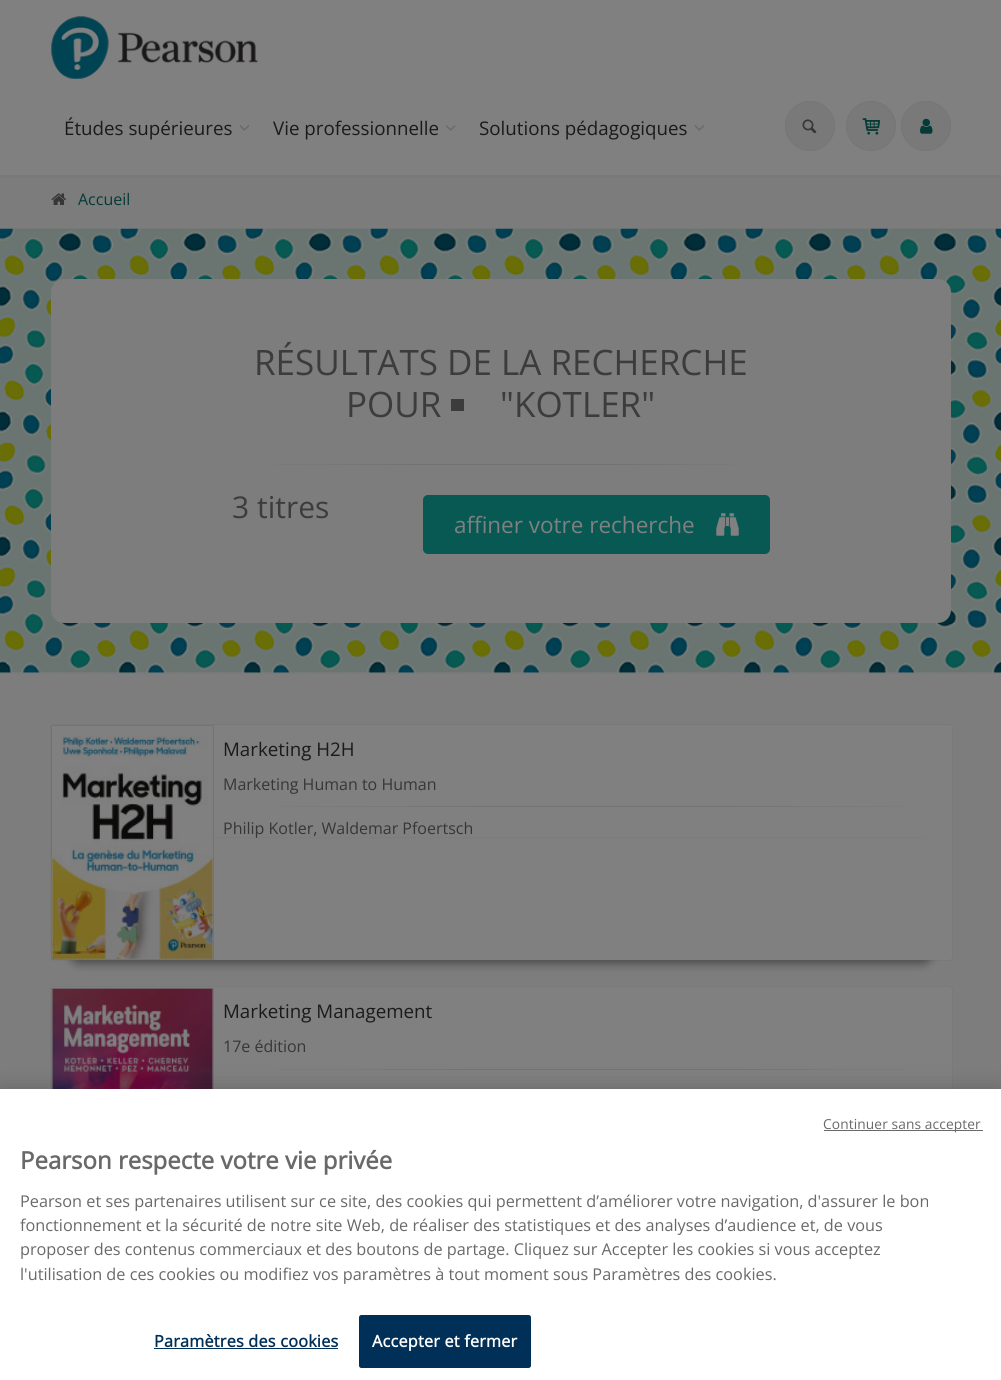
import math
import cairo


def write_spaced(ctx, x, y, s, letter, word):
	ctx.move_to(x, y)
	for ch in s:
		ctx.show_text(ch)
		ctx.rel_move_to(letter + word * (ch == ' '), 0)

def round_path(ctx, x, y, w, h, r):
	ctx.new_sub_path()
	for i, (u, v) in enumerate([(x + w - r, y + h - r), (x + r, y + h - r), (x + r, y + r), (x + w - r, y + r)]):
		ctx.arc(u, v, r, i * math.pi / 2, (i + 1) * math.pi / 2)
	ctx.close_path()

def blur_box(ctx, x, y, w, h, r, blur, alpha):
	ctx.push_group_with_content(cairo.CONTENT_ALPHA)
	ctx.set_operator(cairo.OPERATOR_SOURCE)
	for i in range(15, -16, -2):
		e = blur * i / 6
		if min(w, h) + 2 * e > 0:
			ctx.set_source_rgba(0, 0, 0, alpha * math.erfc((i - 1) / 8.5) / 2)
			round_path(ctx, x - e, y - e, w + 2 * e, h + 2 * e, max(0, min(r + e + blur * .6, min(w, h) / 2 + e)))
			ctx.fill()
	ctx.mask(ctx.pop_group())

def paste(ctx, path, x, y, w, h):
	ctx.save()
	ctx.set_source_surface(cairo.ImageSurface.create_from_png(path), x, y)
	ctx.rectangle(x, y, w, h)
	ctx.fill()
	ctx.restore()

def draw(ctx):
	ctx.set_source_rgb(0.502, 0.502, 0.502)
	ctx.paint()
	ctx.set_source_rgb(0.475, 0.475, 0.475)
	ctx.rectangle(0, 175, 1001, 3)
	ctx.fill()
	paste(ctx, 'media/1.png', 51, 16, 207, 63)
	ctx.select_font_face('Open Sans')
	ctx.set_font_size(18.75)
	ctx.set_source_rgb(0.102, 0.102, 0.102)
	ctx.move_to(64, 135)
	ctx.show_text('Études supérieures')
	paste(ctx, 'media/2.png', 239, 125, 10, 6)
	ctx.move_to(273, 135)
	ctx.show_text('Vie professionnelle')
	paste(ctx, 'media/3.png', 446, 125, 10, 6)
	ctx.move_to(479, 135)
	ctx.show_text('Solutions pédagogiques')
	paste(ctx, 'media/2.png', 694, 125, 10, 6)
	ctx.set_source_rgb(0.475, 0.475, 0.475)
	ctx.arc(810, 126, 24.5, 0, 2 * math.pi)
	ctx.fill_preserve()
	ctx.set_source_rgb(0.459, 0.459, 0.459)
	ctx.set_line_width(1)
	ctx.stroke()
	paste(ctx, 'media/4.png', 802, 119, 15, 15)
	ctx.set_source_rgb(0.475, 0.475, 0.475)
	ctx.arc(871, 126, 24.5, 0, 2 * math.pi)
	ctx.fill_preserve()
	ctx.set_source_rgb(0.459, 0.459, 0.459)
	ctx.stroke()
	paste(ctx, 'media/5.png', 862, 118, 18, 17)
	ctx.set_source_rgb(0.475, 0.475, 0.475)
	ctx.arc(926, 126, 24.5, 0, 2 * math.pi)
	ctx.fill_preserve()
	ctx.set_source_rgb(0.459, 0.459, 0.459)
	ctx.stroke()
	paste(ctx, 'media/6.png', 920, 118, 13, 16)
	ctx.set_source_rgb(0.486, 0.486, 0.486)
	ctx.rectangle(0, 178, 1001, 50)
	ctx.fill()
	ctx.set_source_rgb(0.478, 0.478, 0.478)
	ctx.rectangle(0, 228, 1001, 1)
	ctx.fill()
	paste(ctx, 'media/7.png', 51, 193, 15, 12)
	ctx.set_font_size(16)
	ctx.set_source_rgb(0.016, 0.231, 0.212)
	ctx.move_to(78, 205)
	ctx.show_text('Accueil')
	paste(ctx, 'media/8.png', 0, 228, 1001, 445)
	ctx.set_source_rgb(0.49, 0.49, 0.49)
	round_path(ctx, 51, 279, 900, 344, 13)
	ctx.fill()
	ctx.set_font_size(35)
	ctx.set_source_rgb(0.235, 0.235, 0.235)
	ctx.move_to(254, 375)
	ctx.show_text('RÉSULTATS DE LA RECHERCHE')
	ctx.move_to(346, 417)
	ctx.show_text('POUR')
	ctx.rectangle(451, 399, 13, 12)
	ctx.fill()
	ctx.move_to(500, 417)
	ctx.show_text('"KOTLER"')
	gradient = cairo.LinearGradient(233, 464, 770, 464)
	gradient.add_color_stop_rgba(0, 0.49, 0.49, 0.49, 1)
	gradient.add_color_stop_rgba(0.35, 0.447, 0.447, 0.447, 1)
	gradient.add_color_stop_rgba(0.7, 0.447, 0.447, 0.447, 1)
	gradient.add_color_stop_rgba(1, 0.49, 0.49, 0.49, 1)
	ctx.set_source(gradient)
	ctx.rectangle(276, 464, 457, 1)
	ctx.fill()
	ctx.set_font_size(30)
	ctx.set_source_rgb(0.235, 0.235, 0.235)
	ctx.move_to(232, 518)
	ctx.show_text('3 titres')
	ctx.set_source_rgb(0.035, 0.349, 0.325)
	round_path(ctx, 423, 495, 347, 59, 5)
	ctx.fill()
	ctx.set_font_size(22.5)
	ctx.set_source_rgb(0.502, 0.502, 0.502)
	ctx.move_to(454, 533)
	ctx.show_text('affiner votre recherche')
	paste(ctx, 'media/9.png', 716, 513, 23, 23)
	ctx.set_source_rgb(0.49, 0.49, 0.49)
	ctx.rectangle(0, 674, 1001, 415)
	ctx.fill()
	ctx.set_source_rgb(0.478, 0.478, 0.478)
	ctx.rectangle(0, 673, 1001, 1)
	ctx.fill()
	ctx.set_source_rgb(0.502, 0.502, 0.502)
	round_path(ctx, 50.5, 724.5, 902, 236, 3.5)
	ctx.fill_preserve()
	ctx.set_source_rgb(0.475, 0.475, 0.475)
	ctx.stroke()
	ctx.set_source_rgb(0.302, 0.302, 0.302)
	blur_box(ctx, 69, 846, 864, 118, 11, 4.5, 1)
	ctx.set_source_rgb(0.502, 0.502, 0.502)
	ctx.rectangle(52, 839, 899, 121)
	ctx.fill()
	ctx.rectangle(51.5, 725.5, 162, 234)
	ctx.set_source_rgb(0.451, 0.451, 0.451)
	ctx.stroke()
	paste(ctx, 'media/10.png', 52, 736, 161, 223)
	ctx.set_font_size(18.75)
	ctx.set_source_rgb(0.102, 0.102, 0.102)
	ctx.move_to(223, 756)
	ctx.show_text('Marketing H2H')
	ctx.set_font_size(16)
	ctx.set_source_rgb(0.212, 0.212, 0.212)
	ctx.move_to(223, 790)
	ctx.show_text('Marketing Human to Human')
	gradient = cairo.LinearGradient(224, 807, 951, 807)
	gradient.add_color_stop_rgba(0, 0.502, 0.502, 0.502, 1)
	gradient.add_color_stop_rgba(0.35, 0.455, 0.455, 0.455, 1)
	gradient.add_color_stop_rgba(0.7, 0.455, 0.455, 0.455, 1)
	gradient.add_color_stop_rgba(1, 0.502, 0.502, 0.502, 1)
	ctx.set_source(gradient)
	ctx.rectangle(277, 806, 629, 1)
	ctx.fill()
	ctx.set_source_rgb(0.212, 0.212, 0.212)
	ctx.move_to(223, 834)
	ctx.show_text('Philip Kotler, Waldemar Pfoertsch')
	ctx.set_source_rgb(0.502, 0.502, 0.502)
	round_path(ctx, 50.5, 986.5, 902, 237, 3.5)
	ctx.fill_preserve()
	ctx.set_source_rgb(0.475, 0.475, 0.475)
	ctx.stroke()
	ctx.rectangle(51.5, 988.5, 162, 234)
	ctx.set_source_rgb(0.451, 0.451, 0.451)
	ctx.stroke()
	paste(ctx, 'media/11.png', 52, 988, 161, 101)
	ctx.set_font_size(18.75)
	ctx.set_source_rgb(0.102, 0.102, 0.102)
	ctx.move_to(223, 1018)
	ctx.show_text('Marketing Management')
	ctx.set_font_size(16)
	ctx.set_source_rgb(0.212, 0.212, 0.212)
	ctx.move_to(223, 1052)
	ctx.show_text('17e édition')
	gradient = cairo.LinearGradient(224, 1069, 951, 1069)
	gradient.add_color_stop_rgba(0, 0.502, 0.502, 0.502, 1)
	gradient.add_color_stop_rgba(0.35, 0.455, 0.455, 0.455, 1)
	gradient.add_color_stop_rgba(0.7, 0.455, 0.455, 0.455, 1)
	gradient.add_color_stop_rgba(1, 0.502, 0.502, 0.502, 1)
	ctx.set_source(gradient)
	ctx.rectangle(277, 1069, 629, 1)
	ctx.fill()
	ctx.set_source_rgb(0, 0, 0)
	blur_box(ctx, 0, 1089, 1001, 291, 0, 11, 0.2)
	ctx.set_source_rgb(1, 1, 1)
	ctx.rectangle(0, 1089, 1001, 291)
	ctx.fill()
	ctx.set_source_rgb(0.412, 0.412, 0.412)
	ctx.rectangle(824, 1130, 159, 1)
	ctx.fill()
	ctx.set_font_size(13.75)
	write_spaced(ctx, 823, 1129, 'Continuer sans accepter', 0.1, 0)
	ctx.select_font_face('Open Sans', cairo.FONT_SLANT_NORMAL, cairo.FONT_WEIGHT_BOLD)
	ctx.set_font_size(24)
	ctx.move_to(20, 1169)
	ctx.show_text('Pearson respecte votre vie privée')
	ctx.select_font_face('Open Sans')
	ctx.set_font_size(16.25)
	for x, y, s in [
		(20, 1207, 'Pearson et ses partenaires utilisent sur ce site, des cookies qui permettent d’améliorer votre navigation, d\'assurer le bon'),
		(20, 1231, 'fonctionnement et la sécurité de notre site Web, de réaliser des statistiques et des analyses d’audience et, de vous'),
		(20, 1255, 'proposer des contenus commerciaux et des boutons de partage. Cliquez sur Accepter les cookies si vous acceptez'),
		(20, 1280, 'l\'utilisation de ces cookies ou modifiez vos paramètres à tout moment sous Paramètres des cookies.'),
	]:
		ctx.move_to(x, y)
		ctx.show_text(s)
	ctx.select_font_face('Open Sans', cairo.FONT_SLANT_NORMAL, cairo.FONT_WEIGHT_BOLD)
	ctx.set_source_rgb(0, 0.188, 0.341)
	write_spaced(ctx, 154, 1347, 'Paramètres des cookies', 0.2, 0)
	ctx.rectangle(154, 1348, 184, 1)
	ctx.fill()
	round_path(ctx, 359.5, 1315.5, 171, 52, 2)
	ctx.fill_preserve()
	ctx.stroke()
	ctx.set_source_rgb(1, 1, 1)
	write_spaced(ctx, 372, 1347, 'Accepter et fermer', 0.2, 0)


surface = cairo.ImageSurface(cairo.FORMAT_RGB24, 1001, 1380)
ctx = cairo.Context(surface)
options = cairo.FontOptions()
options.set_hint_metrics(cairo.HINT_METRICS_OFF)
options.set_hint_style(cairo.HINT_STYLE_NONE)
ctx.set_font_options(options)
ctx.set_miter_limit(4)
draw(ctx)
surface.write_to_png('image.png')
